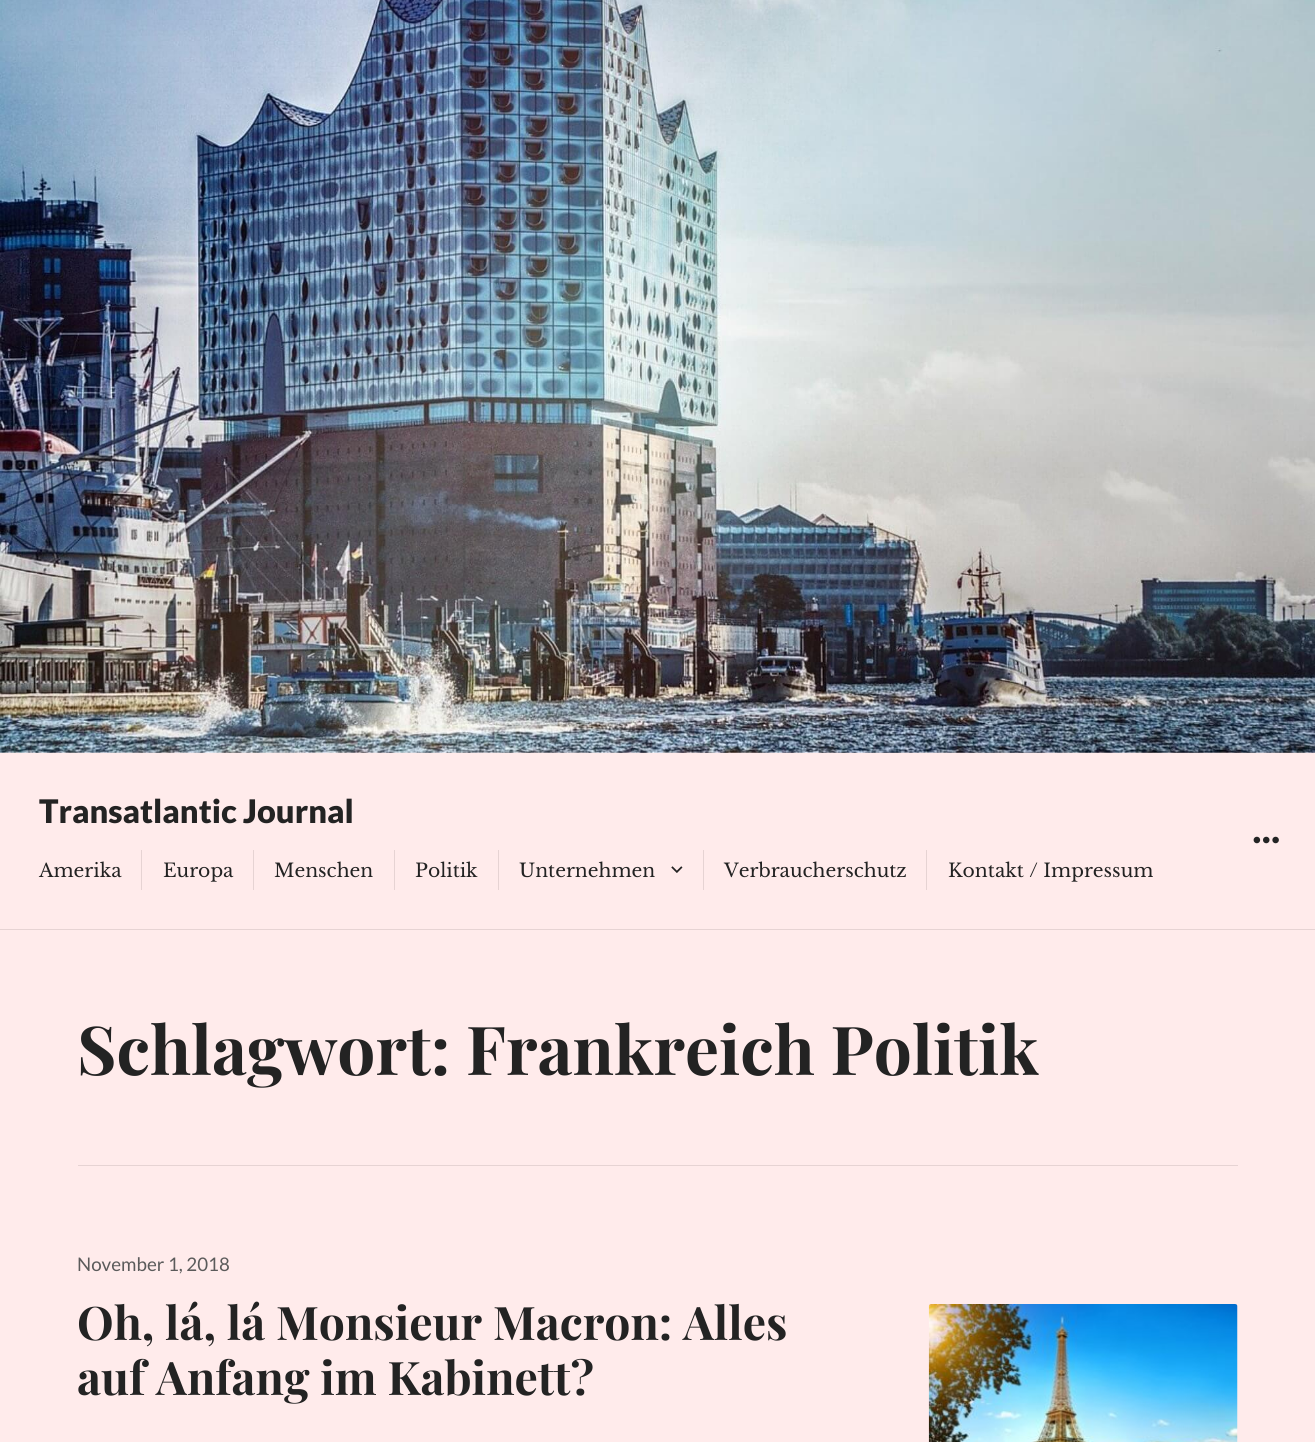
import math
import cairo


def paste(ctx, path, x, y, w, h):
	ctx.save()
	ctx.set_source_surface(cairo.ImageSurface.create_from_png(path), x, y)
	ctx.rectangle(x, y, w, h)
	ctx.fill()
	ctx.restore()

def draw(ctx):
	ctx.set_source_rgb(1, 0.918, 0.918)
	ctx.paint()
	paste(ctx, 'media/1.png', 0, 0, 1315, 753)
	ctx.set_source_rgb(0.902, 0.827, 0.827)
	ctx.rectangle(0, 929, 1315, 1)
	ctx.fill()
	ctx.select_font_face('Lato Black')
	ctx.set_font_size(32.5)
	ctx.set_source_rgb(0.137, 0.137, 0.137)
	ctx.move_to(39, 823)
	ctx.show_text('Transatlantic Journal')
	paste(ctx, 'media/2.png', 1253, 836, 26, 8)
	ctx.select_font_face('Libre Baskerville')
	ctx.set_font_size(18.75)
	ctx.move_to(39, 877)
	ctx.show_text('Amerika')
	ctx.set_source_rgb(0.902, 0.827, 0.827)
	ctx.rectangle(141, 850, 1, 40)
	ctx.fill()
	ctx.set_source_rgb(0.137, 0.137, 0.137)
	ctx.move_to(163, 877)
	ctx.show_text('Europa')
	ctx.set_source_rgb(0.902, 0.827, 0.827)
	ctx.rectangle(253, 850, 1, 40)
	ctx.fill()
	ctx.set_source_rgb(0.137, 0.137, 0.137)
	ctx.move_to(274, 877)
	ctx.show_text('Menschen')
	ctx.set_source_rgb(0.902, 0.827, 0.827)
	ctx.rectangle(394, 850, 1, 40)
	ctx.fill()
	ctx.set_source_rgb(0.137, 0.137, 0.137)
	ctx.move_to(415, 877)
	ctx.show_text('Politik')
	ctx.set_source_rgb(0.902, 0.827, 0.827)
	ctx.rectangle(498, 850, 1, 40)
	ctx.fill()
	ctx.set_source_rgb(0.137, 0.137, 0.137)
	ctx.move_to(519, 877)
	ctx.show_text('Unternehmen')
	paste(ctx, 'media/3.png', 671, 866, 12, 7)
	ctx.set_source_rgb(0.902, 0.827, 0.827)
	ctx.rectangle(703, 850, 1, 40)
	ctx.fill()
	ctx.set_source_rgb(0.137, 0.137, 0.137)
	ctx.move_to(724, 877)
	ctx.show_text('Verbraucherschutz')
	ctx.set_source_rgb(0.902, 0.827, 0.827)
	ctx.rectangle(926, 850, 1, 40)
	ctx.fill()
	ctx.set_source_rgb(0.137, 0.137, 0.137)
	ctx.move_to(948, 877)
	ctx.show_text('Kontakt / Impressum')
	ctx.set_source_rgb(0.902, 0.827, 0.827)
	ctx.rectangle(78, 1165, 1160, 1)
	ctx.fill()
	ctx.select_font_face('Playfair Display', cairo.FONT_SLANT_NORMAL, cairo.FONT_WEIGHT_BOLD)
	ctx.set_font_size(67.5)
	ctx.set_source_rgb(0.137, 0.137, 0.137)
	ctx.move_to(77, 1075)
	ctx.show_text('Schlagwort: Frankreich Politik')
	ctx.select_font_face('Lato')
	ctx.set_font_size(18.75)
	ctx.set_source_rgb(0.357, 0.357, 0.357)
	ctx.move_to(77, 1271)
	ctx.show_text('November 1, 2018')
	ctx.select_font_face('Playfair Display', cairo.FONT_SLANT_NORMAL, cairo.FONT_WEIGHT_BOLD)
	ctx.set_font_size(46.25)
	ctx.set_source_rgb(0.137, 0.137, 0.137)
	ctx.move_to(77, 1340)
	ctx.show_text('Oh, lá, lá Monsieur Macron: Alles')
	ctx.move_to(77, 1395)
	ctx.show_text('auf Anfang im Kabinett?')
	paste(ctx, 'media/4.png', 928, 1304, 310, 138)


surface = cairo.ImageSurface(cairo.FORMAT_RGB24, 1315, 1442)
ctx = cairo.Context(surface)
options = cairo.FontOptions()
options.set_hint_metrics(cairo.HINT_METRICS_OFF)
options.set_hint_style(cairo.HINT_STYLE_NONE)
ctx.set_font_options(options)
ctx.set_miter_limit(4)
draw(ctx)
surface.write_to_png('image.png')
